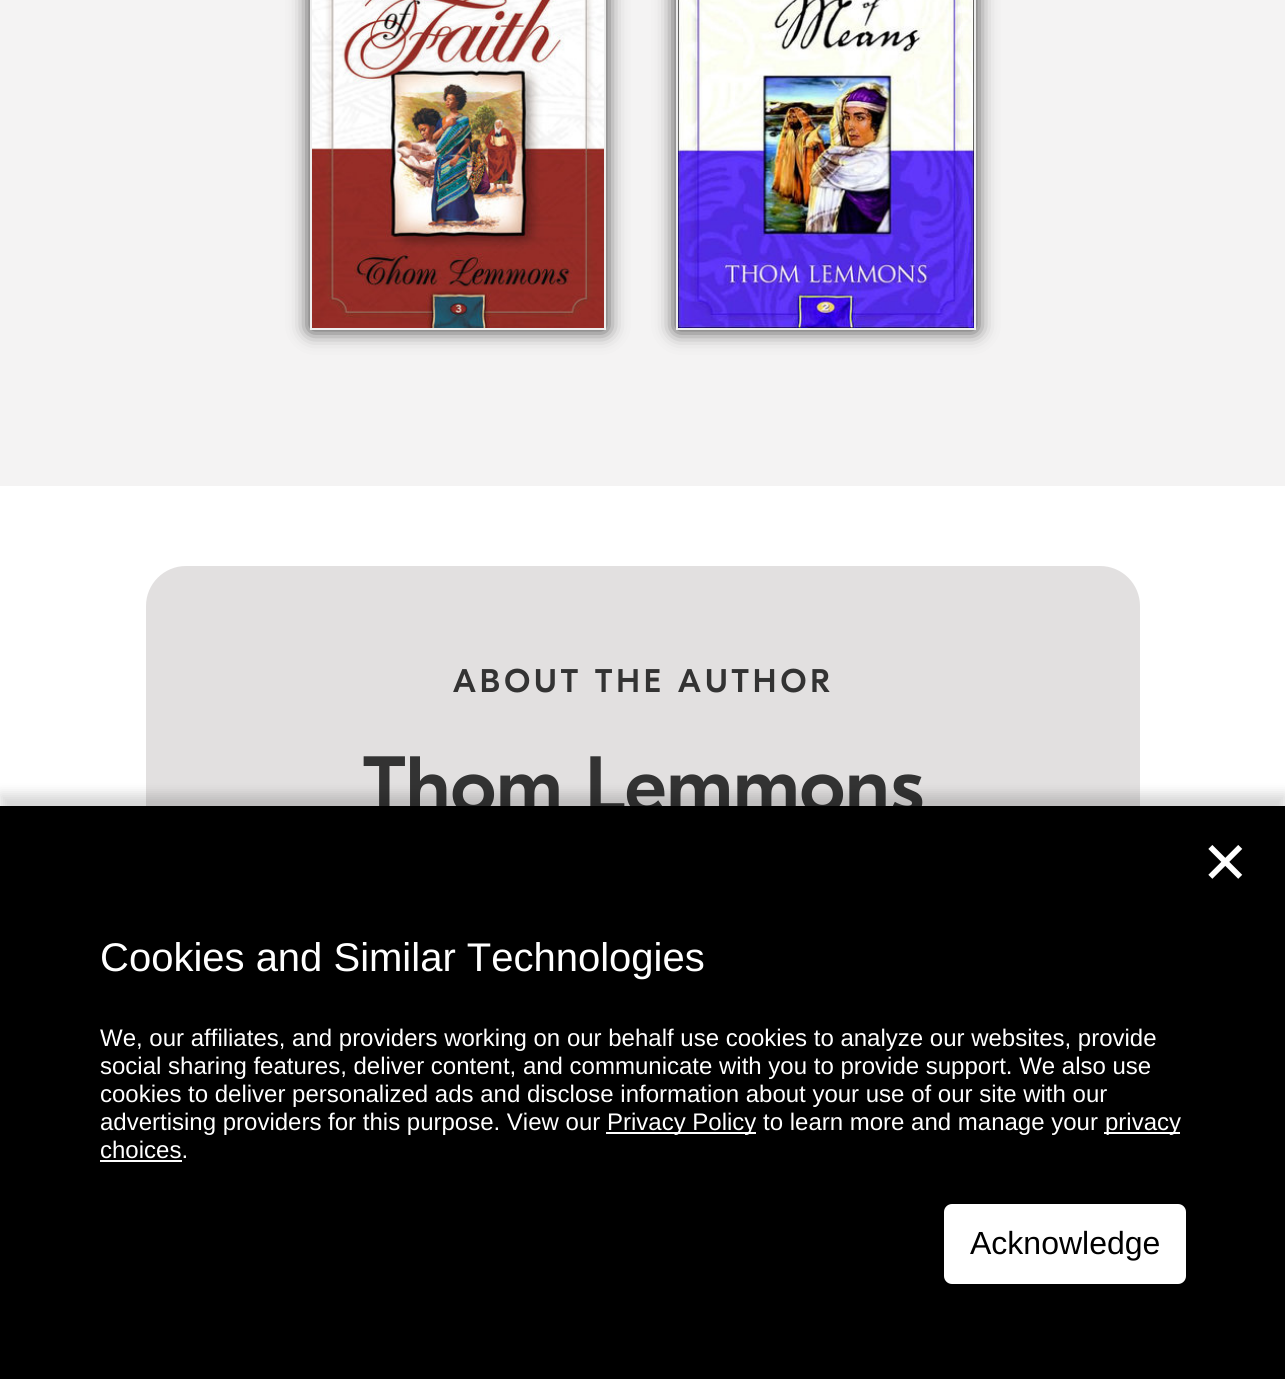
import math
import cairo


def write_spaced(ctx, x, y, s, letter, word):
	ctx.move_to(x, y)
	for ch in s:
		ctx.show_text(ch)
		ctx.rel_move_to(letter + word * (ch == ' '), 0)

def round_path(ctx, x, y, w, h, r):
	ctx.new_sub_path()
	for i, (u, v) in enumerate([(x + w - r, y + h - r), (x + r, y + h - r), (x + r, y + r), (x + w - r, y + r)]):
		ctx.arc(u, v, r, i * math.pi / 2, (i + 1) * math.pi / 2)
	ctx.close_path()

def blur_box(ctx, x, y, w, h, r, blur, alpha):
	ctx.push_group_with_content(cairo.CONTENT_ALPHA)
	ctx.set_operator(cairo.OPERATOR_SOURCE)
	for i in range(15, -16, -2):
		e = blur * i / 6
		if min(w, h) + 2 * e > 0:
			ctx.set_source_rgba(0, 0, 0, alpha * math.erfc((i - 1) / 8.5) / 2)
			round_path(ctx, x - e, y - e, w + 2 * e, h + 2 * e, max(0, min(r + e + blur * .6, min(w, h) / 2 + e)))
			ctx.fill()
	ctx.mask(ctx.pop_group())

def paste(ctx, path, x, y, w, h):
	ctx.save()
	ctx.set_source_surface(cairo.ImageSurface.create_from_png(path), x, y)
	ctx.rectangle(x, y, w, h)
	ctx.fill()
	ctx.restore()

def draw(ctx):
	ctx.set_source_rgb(1, 1, 1)
	ctx.paint()
	ctx.set_source_rgb(0.957, 0.953, 0.953)
	ctx.rectangle(0, 0, 1285, 486)
	ctx.fill()
	ctx.set_source_rgb(0.2, 0.2, 0.2)
	blur_box(ctx, 310, -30, 296, 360, 0, 10, 1)
	ctx.rectangle(311, -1, 294, 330)
	ctx.set_source_rgb(0.933, 0.933, 0.933)
	ctx.stroke()
	paste(ctx, 'media/1.png', 312, 0, 292, 328)
	ctx.set_source_rgb(0.2, 0.2, 0.2)
	blur_box(ctx, 676, -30, 300, 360, 0, 10, 1)
	ctx.rectangle(677, -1, 298, 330)
	ctx.set_source_rgb(0.933, 0.933, 0.933)
	ctx.stroke()
	paste(ctx, 'media/2.png', 678, 0, 296, 328)
	ctx.set_source_rgb(0.886, 0.878, 0.878)
	round_path(ctx, 146, 566, 994, 376, 40)
	ctx.fill()
	ctx.select_font_face('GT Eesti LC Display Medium')
	ctx.set_font_size(32.75)
	ctx.set_source_rgb(0.2, 0.2, 0.2)
	write_spaced(ctx, 453, 692, 'ABOUT THE AUTHOR', 4, 0)
	ctx.set_font_size(81)
	ctx.move_to(363, 813)
	ctx.show_text('Thom Lemmons')
	ctx.set_source_rgb(0, 0, 0)
	blur_box(ctx, 0, 794, 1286, 574, 0, 6, 0.16)
	ctx.set_source_rgb(0, 0, 0)
	ctx.rectangle(0, 806, 1285, 573)
	ctx.fill()
	ctx.select_font_face('DejaVu Sans')
	ctx.set_font_size(58)
	ctx.set_source_rgb(1, 1, 1)
	ctx.move_to(1201, 883)
	ctx.show_text('✕')
	ctx.select_font_face('Liberation Sans')
	ctx.set_font_size(40)
	ctx.move_to(100, 971)
	ctx.show_text('Cookies and Similar Technologies')
	ctx.set_font_size(24)
	for x, y, s in [
		(100, 1046, 'We, our affiliates, and providers working on our behalf use cookies to analyze our websites, provide'),
		(100, 1074, 'social sharing features, deliver content, and communicate with you to provide support. We also use'),
		(100, 1102, 'cookies to deliver personalized ads and disclose information about your use of our site with our'),
		(100, 1130, 'advertising providers for this purpose. View our'),
	]:
		ctx.move_to(x, y)
		ctx.show_text(s)
	ctx.rectangle(606, 1132, 150, 2)
	ctx.fill()
	ctx.move_to(607, 1130)
	ctx.show_text('Privacy Policy to learn more and manage your')
	ctx.rectangle(1104, 1132, 76, 2)
	ctx.fill()
	ctx.move_to(1105, 1130)
	ctx.show_text('privacy')
	ctx.move_to(100, 1158)
	ctx.show_text('choices.')
	ctx.rectangle(100, 1160, 82, 2)
	ctx.fill()
	round_path(ctx, 946, 1206, 238, 76, 6)
	ctx.fill_preserve()
	ctx.set_line_width(4)
	ctx.stroke()
	ctx.set_font_size(32)
	ctx.set_source_rgb(0, 0, 0)
	ctx.move_to(970, 1254)
	ctx.show_text('Acknowledge')


surface = cairo.ImageSurface(cairo.FORMAT_RGB24, 1285, 1379)
ctx = cairo.Context(surface)
options = cairo.FontOptions()
options.set_hint_metrics(cairo.HINT_METRICS_OFF)
options.set_hint_style(cairo.HINT_STYLE_NONE)
ctx.set_font_options(options)
ctx.set_miter_limit(4)
draw(ctx)
surface.write_to_png('image.png')
